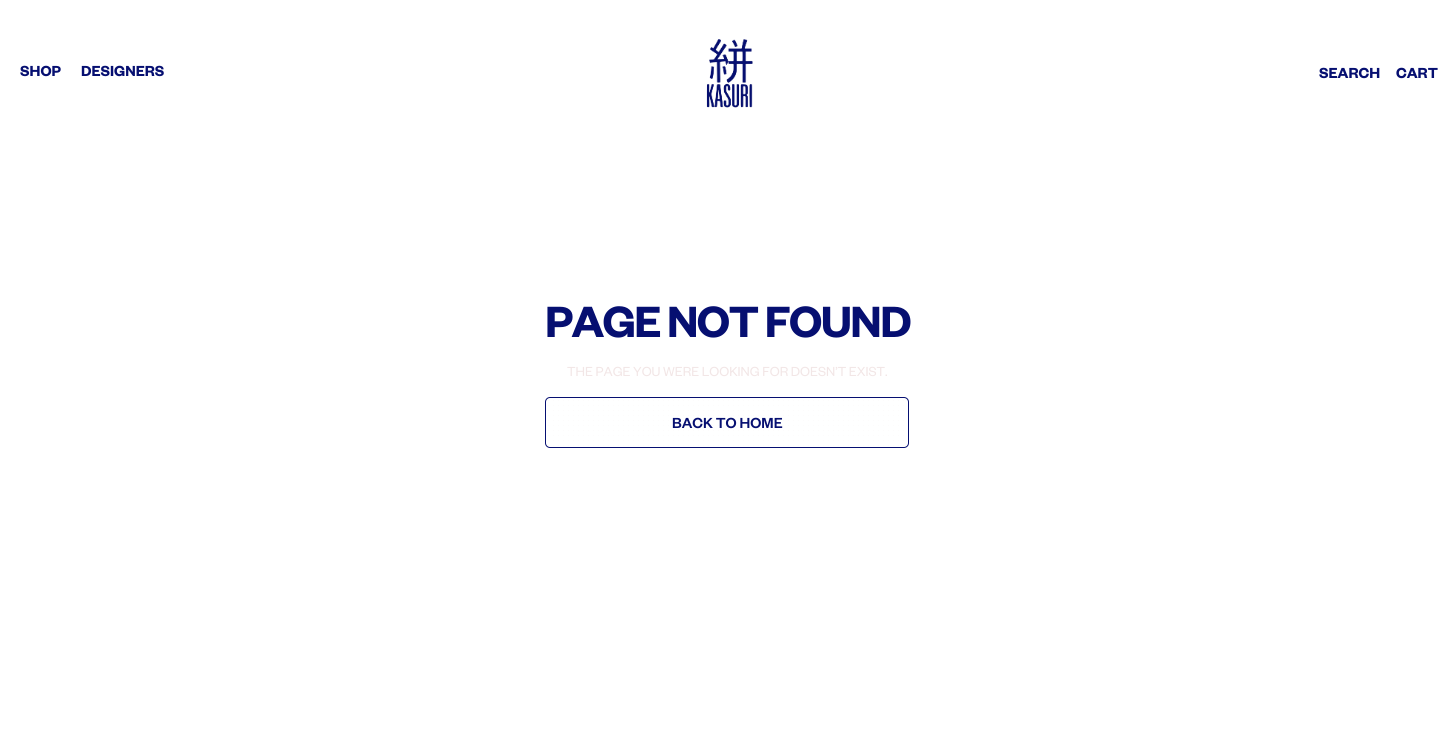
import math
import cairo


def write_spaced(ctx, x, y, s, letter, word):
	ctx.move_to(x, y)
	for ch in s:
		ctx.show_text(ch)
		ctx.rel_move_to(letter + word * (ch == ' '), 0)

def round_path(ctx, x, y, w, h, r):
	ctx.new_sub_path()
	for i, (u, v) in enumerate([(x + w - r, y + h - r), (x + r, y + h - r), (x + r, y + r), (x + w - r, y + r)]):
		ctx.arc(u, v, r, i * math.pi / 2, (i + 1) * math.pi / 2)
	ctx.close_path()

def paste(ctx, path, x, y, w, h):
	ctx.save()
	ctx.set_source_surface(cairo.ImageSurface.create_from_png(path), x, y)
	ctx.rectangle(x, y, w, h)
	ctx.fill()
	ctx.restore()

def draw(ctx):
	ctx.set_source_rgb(1, 1, 1)
	ctx.paint()
	ctx.select_font_face('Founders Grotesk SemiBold')
	ctx.set_font_size(16)
	ctx.set_source_rgb(0.024, 0.059, 0.443)
	ctx.move_to(20, 76)
	ctx.show_text('SHOP')
	ctx.move_to(81, 76)
	ctx.show_text('DESIGNERS')
	paste(ctx, 'media/1.png', 706, 39, 47, 69)
	ctx.move_to(1319, 78)
	ctx.show_text('SEARCH')
	ctx.move_to(1396, 78)
	ctx.show_text('CART')
	ctx.set_font_size(48)
	write_spaced(ctx, 545, 337, 'PAGE NOT FOUND', -1.6, 0)
	ctx.select_font_face('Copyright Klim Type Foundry')
	ctx.set_font_size(14.4)
	ctx.set_source_rgb(0.949, 0.902, 0.902)
	ctx.move_to(567, 376)
	ctx.show_text('THE PAGE YOU WERE LOOKING FOR DOESN’T EXIST.')
	paste(ctx, 'media/2.png', 548, 400, 361, 46)
	round_path(ctx, 545.5, 397.5, 363, 50, 4.5)
	ctx.set_source_rgb(0.024, 0.059, 0.443)
	ctx.set_line_width(1)
	ctx.stroke()
	ctx.select_font_face('Founders Grotesk Medium')
	ctx.set_font_size(16)
	ctx.move_to(672, 428)
	ctx.show_text('BACK TO HOME')


surface = cairo.ImageSurface(cairo.FORMAT_RGB24, 1454, 748)
ctx = cairo.Context(surface)
options = cairo.FontOptions()
options.set_hint_metrics(cairo.HINT_METRICS_OFF)
options.set_hint_style(cairo.HINT_STYLE_NONE)
ctx.set_font_options(options)
ctx.set_miter_limit(4)
draw(ctx)
surface.write_to_png('image.png')
